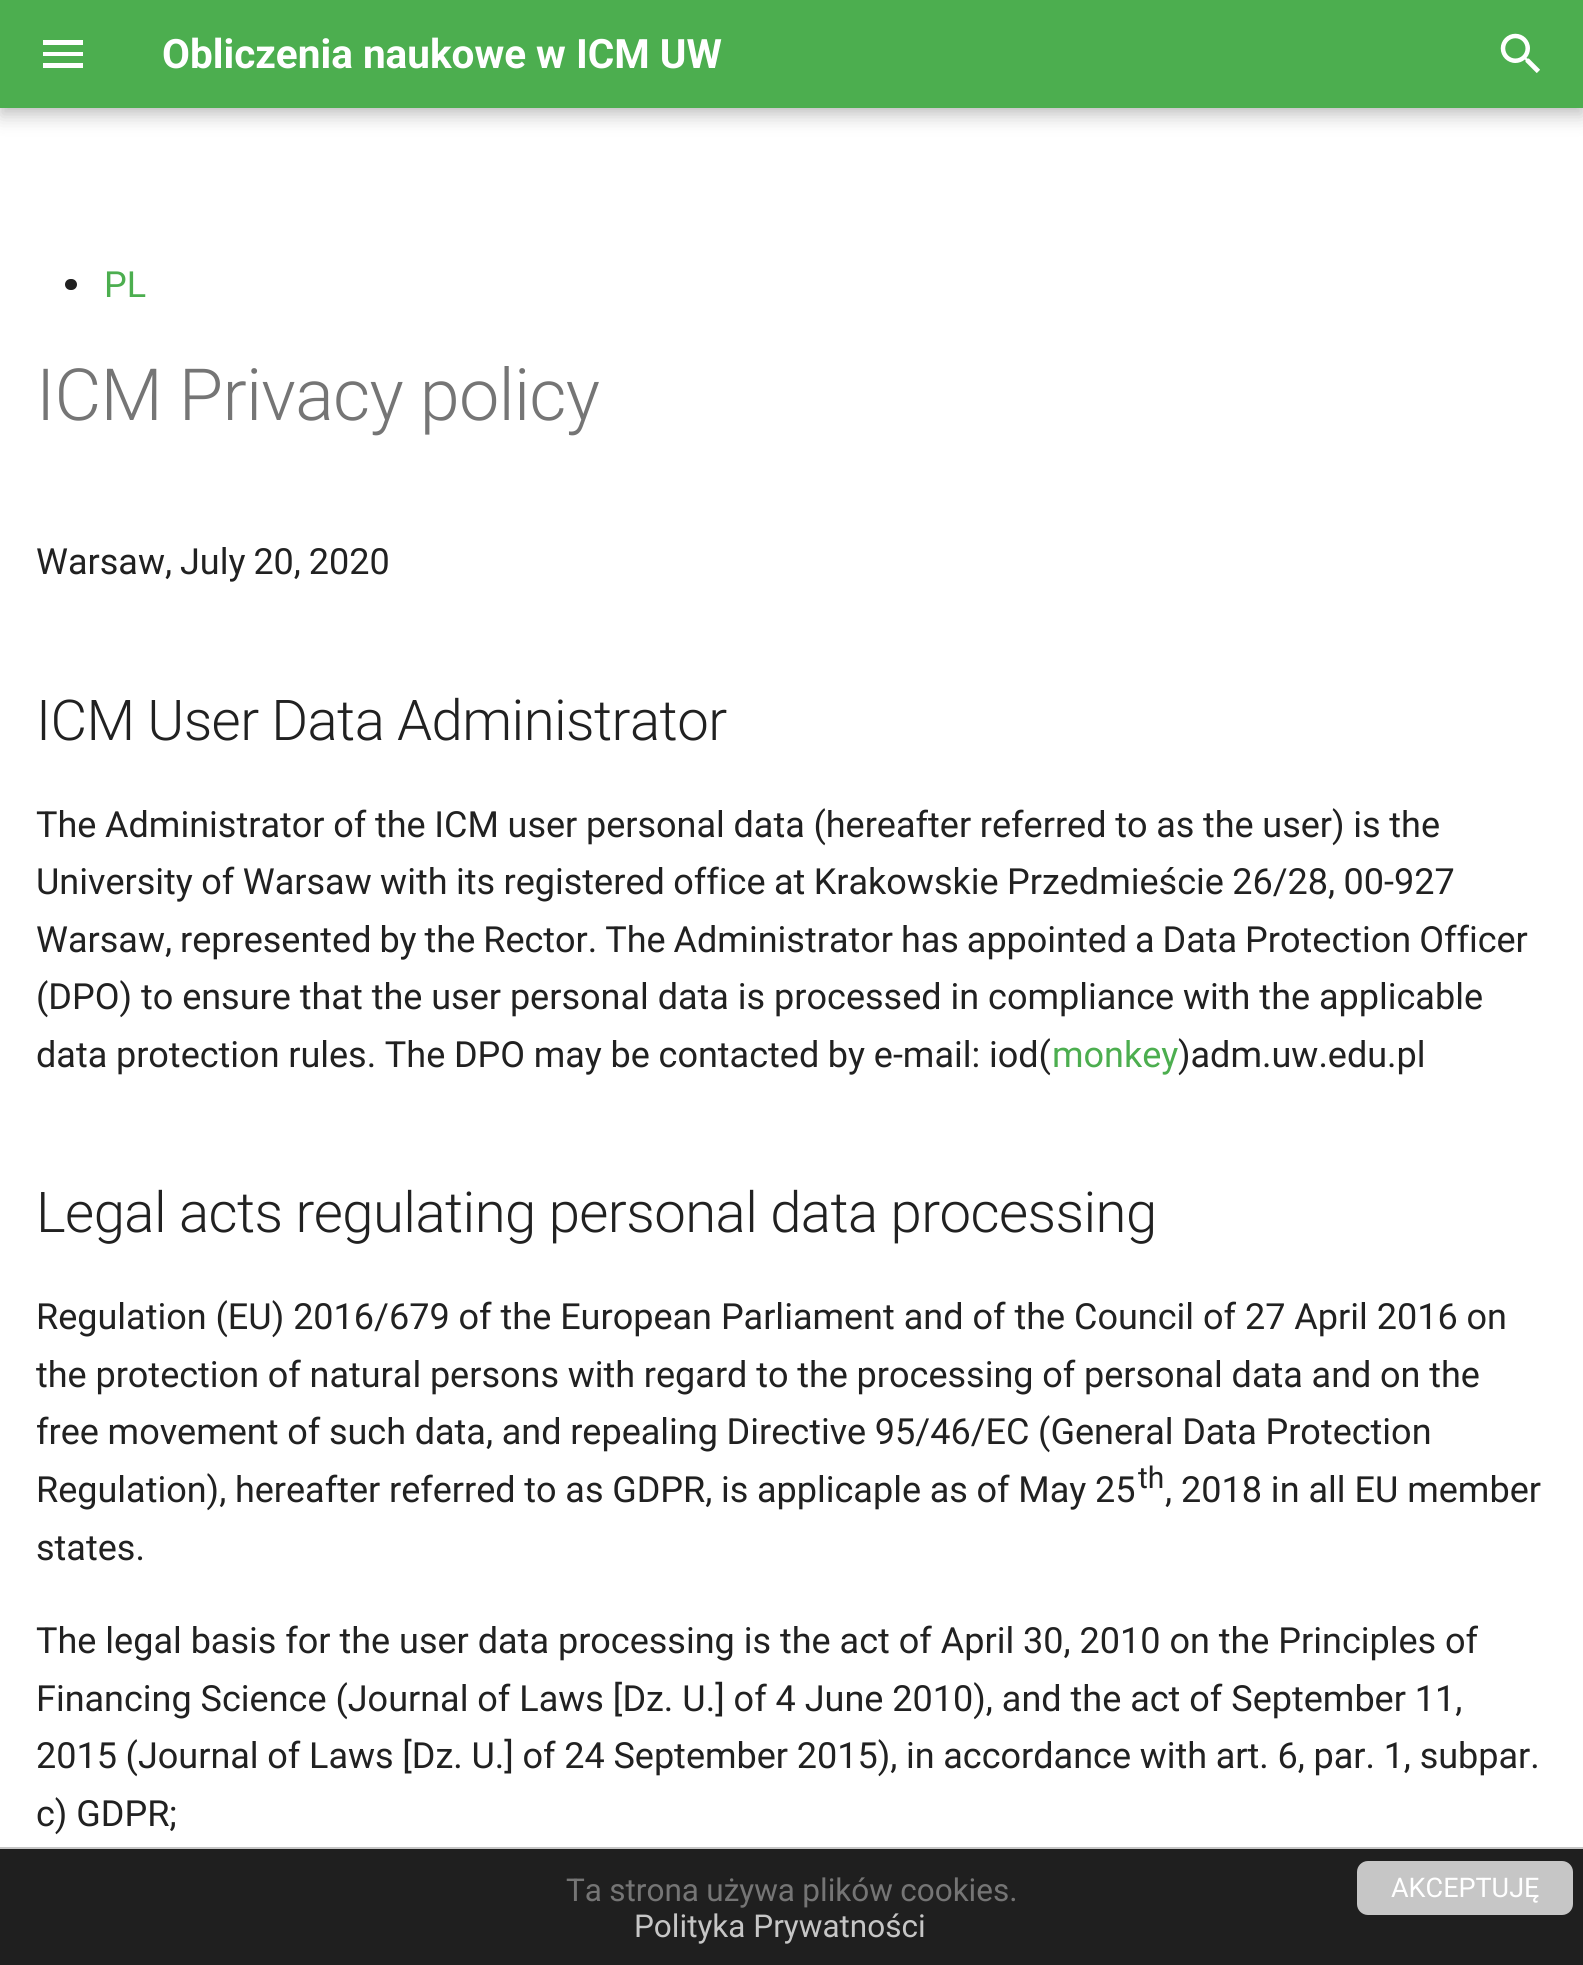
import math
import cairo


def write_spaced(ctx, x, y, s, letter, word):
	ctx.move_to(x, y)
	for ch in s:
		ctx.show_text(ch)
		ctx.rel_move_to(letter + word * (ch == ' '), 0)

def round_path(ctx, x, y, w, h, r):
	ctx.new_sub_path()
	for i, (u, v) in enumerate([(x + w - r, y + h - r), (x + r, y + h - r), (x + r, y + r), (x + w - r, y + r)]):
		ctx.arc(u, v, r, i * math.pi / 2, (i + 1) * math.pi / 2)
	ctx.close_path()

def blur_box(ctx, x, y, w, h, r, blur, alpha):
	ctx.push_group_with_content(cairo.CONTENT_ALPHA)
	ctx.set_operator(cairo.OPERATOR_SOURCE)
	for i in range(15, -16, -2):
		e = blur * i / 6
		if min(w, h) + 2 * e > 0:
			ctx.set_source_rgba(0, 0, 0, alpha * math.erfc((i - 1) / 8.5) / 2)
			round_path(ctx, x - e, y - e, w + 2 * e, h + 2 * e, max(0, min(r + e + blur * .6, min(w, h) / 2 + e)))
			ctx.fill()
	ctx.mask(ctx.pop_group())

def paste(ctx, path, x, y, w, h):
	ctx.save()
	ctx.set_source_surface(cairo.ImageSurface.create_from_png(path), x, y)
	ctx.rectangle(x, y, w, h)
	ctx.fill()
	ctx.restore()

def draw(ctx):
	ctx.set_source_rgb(1, 1, 1)
	ctx.paint()
	ctx.set_source_rgb(0, 0, 0)
	blur_box(ctx, 0, 9, 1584, 108, 0, 9, 0.2)
	blur_box(ctx, 0, 0, 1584, 108, 0, 4.5, 0.1)
	ctx.set_source_rgb(0.298, 0.682, 0.31)
	ctx.rectangle(0, 0, 1583, 108)
	ctx.fill()
	ctx.set_source_rgb(1, 1, 1)
	ctx.new_path()
	ctx.move_to(43, 40)
	ctx.line_to(83, 40)
	ctx.line_to(83, 45)
	ctx.line_to(43, 45)
	ctx.close_path()
	ctx.move_to(43, 52)
	ctx.line_to(83, 52)
	ctx.line_to(83, 56)
	ctx.line_to(43, 56)
	ctx.close_path()
	ctx.move_to(43, 63)
	ctx.line_to(83, 63)
	ctx.line_to(83, 68)
	ctx.line_to(43, 68)
	ctx.close_path()
	ctx.fill()
	ctx.select_font_face('Roboto', cairo.FONT_SLANT_NORMAL, cairo.FONT_WEIGHT_BOLD)
	ctx.set_font_size(40.5)
	ctx.move_to(162, 68)
	ctx.show_text('Obliczenia naukowe w ICM UW')
	paste(ctx, 'media/1.png', 1500, 33, 40, 40)
	ctx.set_source_rgb(0.129, 0.129, 0.129)
	round_path(ctx, 65, 279, 12, 11, 5.5)
	ctx.fill()
	ctx.select_font_face('Roboto')
	ctx.set_font_size(36)
	ctx.set_source_rgb(0.298, 0.682, 0.31)
	ctx.move_to(104, 297)
	ctx.show_text('PL')
	ctx.select_font_face('Roboto Light')
	ctx.set_font_size(72)
	ctx.set_source_rgb(0.459, 0.459, 0.459)
	write_spaced(ctx, 36, 420, 'ICM Privacy policy', -0.75, 0)
	ctx.select_font_face('Roboto')
	ctx.set_font_size(36)
	ctx.set_source_rgb(0.129, 0.129, 0.129)
	write_spaced(ctx, 36, 574, 'Warsaw, July 20, 2020', 0, -1)
	ctx.select_font_face('Roboto Light')
	ctx.set_font_size(56.25)
	write_spaced(ctx, 36, 740, 'ICM User Data Administrator', -0.55, -0.5)
	ctx.select_font_face('Roboto')
	ctx.set_font_size(36)
	write_spaced(ctx, 36, 837, 'The Administrator of the ICM user personal data (hereafter referred to as the user) is the', 0, -0.25)
	write_spaced(ctx, 36, 894, 'University of Warsaw with its registered office at Krakowskie Przedmieście 26/28, 00-927', 0, -0.5)
	write_spaced(ctx, 36, 952, 'Warsaw, represented by the Rector. The Administrator has appointed a Data Protection Officer', 0, -1)
	ctx.move_to(36, 1009)
	ctx.show_text('(DPO) to ensure that the user personal data is processed in compliance with the applicable')
	write_spaced(ctx, 36, 1067, 'data protection rules. The DPO may be contacted by e-mail: iod(', 0, -0.25)
	ctx.set_source_rgb(0.298, 0.682, 0.31)
	ctx.move_to(1052, 1067)
	ctx.show_text('monkey')
	ctx.set_source_rgb(0.129, 0.129, 0.129)
	ctx.move_to(1178, 1067)
	ctx.show_text(')adm.uw.edu.pl')
	ctx.select_font_face('Roboto Light')
	ctx.set_font_size(56.25)
	write_spaced(ctx, 36, 1232, 'Legal acts regulating personal data processing', -0.55, -0.25)
	ctx.select_font_face('Roboto')
	ctx.set_font_size(36)
	ctx.move_to(36, 1329)
	ctx.show_text('Regulation (EU) 2016/679 of the European Parliament and of the Council of 27 April 2016 on')
	write_spaced(ctx, 36, 1387, 'the protection of natural persons with regard to the processing of personal data and on the', 0, -0.2)
	write_spaced(ctx, 36, 1444, 'free movement of such data, and repealing Directive 95/46/EC (General Data Protection', 0, -0.25)
	write_spaced(ctx, 36, 1502, 'Regulation), hereafter referred to as GDPR, is applicaple as of May 25', 0, -0.25)
	ctx.set_font_size(30)
	ctx.move_to(1138, 1488)
	ctx.show_text('th')
	ctx.set_font_size(36)
	for x, y, s in [
		(1165, 1502, ', 2018 in all EU member'),
		(36, 1560, 'states.'),
		(36, 1653, 'The legal basis for the user data processing is the act of April 30, 2010 on the Principles of'),
		(36, 1711, 'Financing Science (Journal of Laws [Dz. U.] of 4 June 2010), and the act of September 11,'),
	]:
		ctx.move_to(x, y)
		ctx.show_text(s)
	write_spaced(ctx, 36, 1768, '2015 (Journal of Laws [Dz. U.] of 24 September 2015), in accordance with art. 6, par. 1, subpar.', 0, -0.25)
	ctx.move_to(36, 1826)
	ctx.show_text('c) GDPR;')
	ctx.set_source_rgb(0.122, 0.122, 0.122)
	ctx.rectangle(0, 1849, 1583, 116)
	ctx.fill()
	ctx.set_source_rgb(0.776, 0.776, 0.776)
	ctx.rectangle(0, 1847, 1583, 2)
	ctx.fill()
	ctx.set_font_size(31.5)
	ctx.set_source_rgb(0.459, 0.459, 0.459)
	write_spaced(ctx, 566, 1901, 'Ta strona używa plików cookies.', 0, -0.5)
	ctx.set_source_rgb(0.776, 0.776, 0.776)
	round_path(ctx, 1357, 1861, 216, 54, 11)
	ctx.fill()
	ctx.set_font_size(27)
	ctx.set_source_rgb(1, 1, 1)
	ctx.move_to(1391, 1897)
	ctx.show_text('AKCEPTUJĘ')
	ctx.set_font_size(31.5)
	ctx.set_source_rgb(0.776, 0.776, 0.776)
	ctx.move_to(634, 1937)
	ctx.show_text('Polityka Prywatności')


surface = cairo.ImageSurface(cairo.FORMAT_RGB24, 1583, 1965)
ctx = cairo.Context(surface)
options = cairo.FontOptions()
options.set_hint_metrics(cairo.HINT_METRICS_OFF)
options.set_hint_style(cairo.HINT_STYLE_NONE)
ctx.set_font_options(options)
ctx.set_miter_limit(4)
draw(ctx)
surface.write_to_png('image.png')
